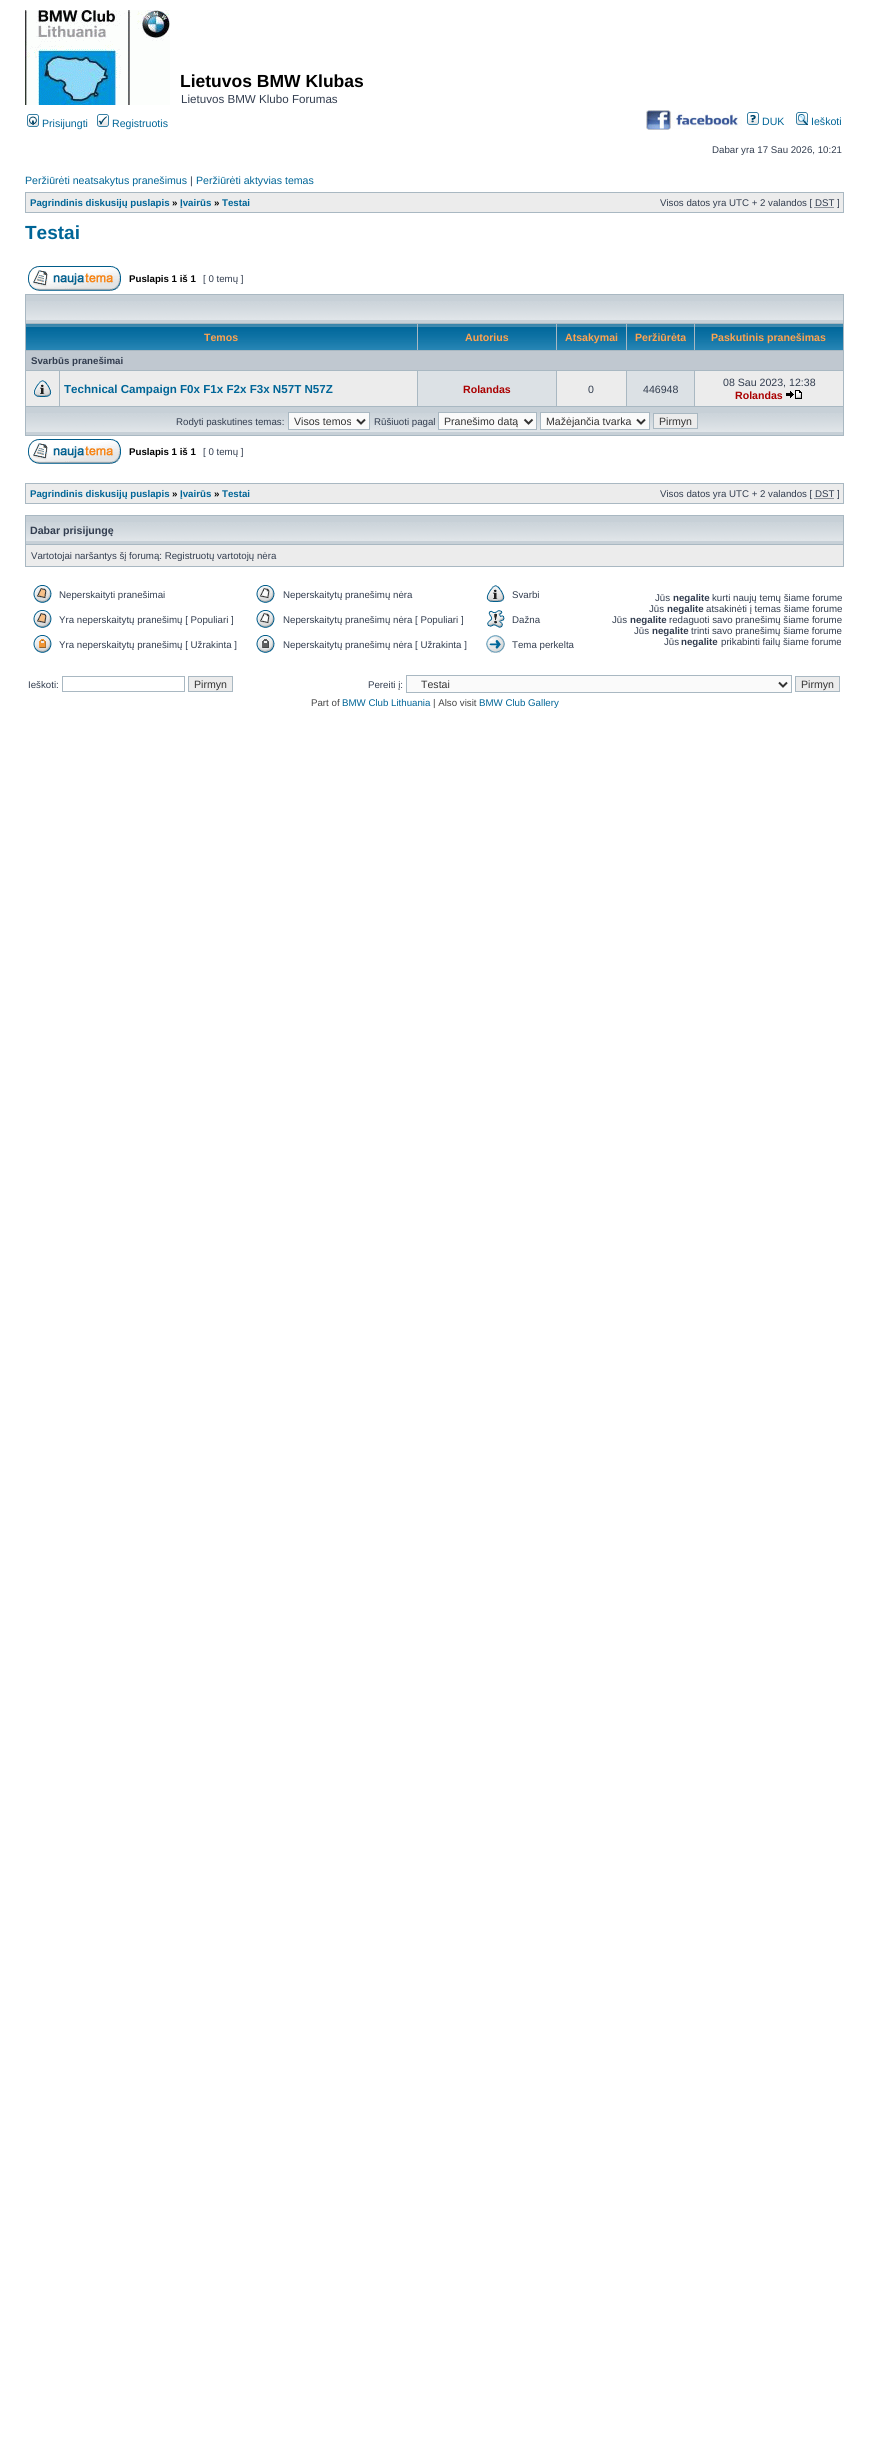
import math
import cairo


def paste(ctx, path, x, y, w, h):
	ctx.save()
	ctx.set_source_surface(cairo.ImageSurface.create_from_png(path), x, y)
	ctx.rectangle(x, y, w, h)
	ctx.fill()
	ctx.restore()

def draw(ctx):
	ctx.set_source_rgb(1, 1, 1)
	ctx.paint()
	paste(ctx, 'media/1.png', 25, 10, 145, 95)
	ctx.select_font_face('Liberation Sans', cairo.FONT_SLANT_NORMAL, cairo.FONT_WEIGHT_BOLD)
	ctx.set_font_size(17.5)
	ctx.set_source_rgb(0, 0, 0)
	ctx.move_to(180, 87)
	ctx.show_text('Lietuvos BMW Klubas')
	ctx.select_font_face('Liberation Sans')
	ctx.set_font_size(11.6)
	ctx.set_source_rgb(0.196, 0.239, 0.31)
	ctx.move_to(181, 103)
	ctx.show_text('Lietuvos BMW Klubo Forumas')
	paste(ctx, 'media/2.png', 27, 114, 12, 13)
	ctx.set_font_size(10.6)
	ctx.set_source_rgb(0, 0.396, 0.592)
	ctx.move_to(42, 127)
	ctx.show_text('Prisijungti')
	paste(ctx, 'media/3.png', 97, 114, 12, 13)
	ctx.move_to(112, 127)
	ctx.show_text('Registruotis')
	paste(ctx, 'media/4.png', 646, 110, 96, 20)
	paste(ctx, 'media/5.png', 747, 112, 12, 13)
	ctx.move_to(762, 125)
	ctx.show_text('DUK')
	paste(ctx, 'media/6.png', 796, 112, 12, 13)
	ctx.move_to(811, 125)
	ctx.show_text('Ieškoti')
	ctx.set_font_size(9.7)
	ctx.set_source_rgb(0.196, 0.239, 0.31)
	ctx.move_to(712, 153)
	ctx.show_text('Dabar yra 17 Sau 2026, 10:21')
	ctx.set_font_size(10.6)
	ctx.set_source_rgb(0, 0.396, 0.592)
	ctx.move_to(25, 184)
	ctx.show_text('Peržiūrėti neatsakytus pranešimus')
	ctx.set_source_rgb(0.196, 0.239, 0.31)
	ctx.move_to(190, 184)
	ctx.show_text('|')
	ctx.set_source_rgb(0, 0.396, 0.592)
	ctx.move_to(196, 184)
	ctx.show_text('Peržiūrėti aktyvias temas')
	ctx.set_source_rgb(0.663, 0.722, 0.761)
	ctx.rectangle(25, 192, 819, 21)
	ctx.fill()
	ctx.set_source_rgb(0.925, 0.925, 0.925)
	ctx.rectangle(26, 193, 817, 19)
	ctx.fill()
	ctx.select_font_face('Liberation Sans', cairo.FONT_SLANT_NORMAL, cairo.FONT_WEIGHT_BOLD)
	ctx.set_font_size(9.7)
	ctx.set_source_rgb(0, 0.396, 0.592)
	ctx.move_to(30, 206)
	ctx.show_text('Pagrindinis diskusijų puslapis')
	ctx.set_source_rgb(0, 0, 0)
	ctx.move_to(172, 206)
	ctx.show_text('»')
	ctx.set_source_rgb(0, 0.396, 0.592)
	ctx.move_to(180, 206)
	ctx.show_text('Įvairūs')
	ctx.set_source_rgb(0, 0, 0)
	ctx.move_to(214, 206)
	ctx.show_text('»')
	ctx.set_source_rgb(0, 0.396, 0.592)
	ctx.move_to(222, 206)
	ctx.show_text('Testai')
	ctx.select_font_face('Liberation Sans')
	ctx.set_source_rgb(0.196, 0.239, 0.31)
	ctx.move_to(660, 206)
	ctx.show_text('Visos datos yra UTC + 2 valandos [ DST ]')
	ctx.new_path()
	ctx.move_to(814.5, 207.5)
	ctx.line_to(833.5, 207.5)
	ctx.set_line_width(1)
	ctx.set_dash([1, 1])
	ctx.stroke()
	ctx.select_font_face('Liberation Sans', cairo.FONT_SLANT_NORMAL, cairo.FONT_WEIGHT_BOLD)
	ctx.set_font_size(19)
	ctx.set_source_rgb(0, 0.396, 0.592)
	ctx.move_to(25, 239)
	ctx.show_text('Testai')
	paste(ctx, 'media/7.png', 28, 266, 93, 25)
	ctx.set_font_size(9.7)
	ctx.set_source_rgb(0, 0, 0)
	ctx.move_to(129, 282)
	ctx.show_text('Puslapis 1 iš 1')
	ctx.select_font_face('Liberation Sans')
	ctx.set_source_rgb(0.196, 0.239, 0.31)
	ctx.move_to(203, 282)
	ctx.show_text('[ 0 temų ]')
	ctx.set_source_rgb(0.663, 0.722, 0.761)
	ctx.rectangle(25, 294, 819, 142)
	ctx.fill()
	ctx.set_source_rgb(0.78, 0.816, 0.843)
	ctx.rectangle(26, 295, 817, 28)
	ctx.fill()
	paste(ctx, 'media/8.png', 26, 301, 817, 19)
	paste(ctx, 'media/9.png', 26, 324, 391, 26)
	ctx.select_font_face('Liberation Sans', cairo.FONT_SLANT_NORMAL, cairo.FONT_WEIGHT_BOLD)
	ctx.set_font_size(10.6)
	ctx.set_source_rgb(1, 0.639, 0.31)
	ctx.move_to(204, 341)
	ctx.show_text('Temos')
	paste(ctx, 'media/10.png', 418, 324, 138, 26)
	ctx.move_to(465, 341)
	ctx.show_text('Autorius')
	paste(ctx, 'media/11.png', 557, 324, 69, 26)
	ctx.move_to(565, 341)
	ctx.show_text('Atsakymai')
	paste(ctx, 'media/12.png', 627, 324, 67, 26)
	ctx.move_to(635, 341)
	ctx.show_text('Peržiūrėta')
	paste(ctx, 'media/13.png', 695, 324, 148, 26)
	ctx.move_to(711, 341)
	ctx.show_text('Paskutinis pranešimas')
	ctx.set_source_rgb(0.753, 0.784, 0.816)
	ctx.rectangle(26, 351, 817, 19)
	ctx.fill()
	ctx.set_font_size(9.7)
	ctx.set_source_rgb(0.196, 0.239, 0.31)
	ctx.move_to(31, 364)
	ctx.show_text('Svarbūs pranešimai')
	ctx.set_source_rgb(0.925, 0.925, 0.925)
	ctx.rectangle(26, 371, 33, 35)
	ctx.fill()
	paste(ctx, 'media/14.png', 33, 380, 19, 17)
	ctx.rectangle(60, 371, 357, 35)
	ctx.fill()
	ctx.set_font_size(11.6)
	ctx.set_source_rgb(0, 0.396, 0.592)
	ctx.move_to(64, 393)
	ctx.show_text('Technical Campaign F0x F1x F2x F3x N57T N57Z')
	ctx.set_source_rgb(0.863, 0.882, 0.898)
	ctx.rectangle(418, 371, 138, 35)
	ctx.fill()
	ctx.set_font_size(10.6)
	ctx.set_source_rgb(0.667, 0, 0)
	ctx.move_to(463, 393)
	ctx.show_text('Rolandas')
	ctx.set_source_rgb(0.925, 0.925, 0.925)
	ctx.rectangle(557, 371, 69, 35)
	ctx.fill()
	ctx.select_font_face('Liberation Sans')
	ctx.set_source_rgb(0.196, 0.239, 0.31)
	ctx.move_to(588, 393)
	ctx.show_text('0')
	ctx.set_source_rgb(0.863, 0.882, 0.898)
	ctx.rectangle(627, 371, 67, 35)
	ctx.fill()
	ctx.set_source_rgb(0.196, 0.239, 0.31)
	ctx.move_to(643, 393)
	ctx.show_text('446948')
	ctx.set_source_rgb(0.925, 0.925, 0.925)
	ctx.rectangle(695, 371, 148, 35)
	ctx.fill()
	ctx.set_source_rgb(0.196, 0.239, 0.31)
	ctx.move_to(723, 386)
	ctx.show_text('08 Sau 2023, 12:38')
	ctx.select_font_face('Liberation Sans', cairo.FONT_SLANT_NORMAL, cairo.FONT_WEIGHT_BOLD)
	ctx.set_source_rgb(0.667, 0, 0)
	ctx.move_to(735, 399)
	ctx.show_text('Rolandas')
	paste(ctx, 'media/15.png', 786, 390, 16, 9)
	ctx.set_source_rgb(0.78, 0.816, 0.843)
	ctx.rectangle(26, 407, 817, 28)
	ctx.fill()
	paste(ctx, 'media/8.png', 26, 413, 817, 19)
	ctx.select_font_face('Liberation Sans')
	ctx.set_font_size(9.7)
	ctx.set_source_rgb(0.196, 0.239, 0.31)
	ctx.move_to(176, 425)
	ctx.show_text('Rodyti paskutines temas:')
	ctx.set_source_rgb(0.98, 0.98, 0.98)
	ctx.rectangle(288.5, 412.5, 81, 17)
	ctx.fill_preserve()
	ctx.set_source_rgb(0.663, 0.722, 0.761)
	ctx.set_dash([])
	ctx.stroke()
	ctx.new_path()
	ctx.move_to(357, 419.5)
	ctx.line_to(361, 423.5)
	ctx.line_to(365, 419.5)
	ctx.set_source_rgb(0.2, 0.2, 0.2)
	ctx.set_line_width(2)
	ctx.stroke()
	ctx.set_font_size(10.6)
	ctx.move_to(294, 425)
	ctx.show_text('Visos temos')
	ctx.set_font_size(9.7)
	ctx.set_source_rgb(0.196, 0.239, 0.31)
	ctx.move_to(374, 425)
	ctx.show_text('Rūšiuoti pagal')
	ctx.set_source_rgb(0.98, 0.98, 0.98)
	ctx.rectangle(438.5, 412.5, 98, 17)
	ctx.fill_preserve()
	ctx.set_source_rgb(0.663, 0.722, 0.761)
	ctx.set_line_width(1)
	ctx.stroke()
	ctx.new_path()
	ctx.move_to(524.5, 419.5)
	ctx.line_to(528.5, 423.5)
	ctx.line_to(532.5, 419.5)
	ctx.set_source_rgb(0.2, 0.2, 0.2)
	ctx.set_line_width(2)
	ctx.stroke()
	ctx.set_font_size(10.6)
	ctx.move_to(444, 425)
	ctx.show_text('Pranešimo datą')
	ctx.set_source_rgb(0.98, 0.98, 0.98)
	ctx.rectangle(540.5, 412.5, 109, 17)
	ctx.fill_preserve()
	ctx.set_source_rgb(0.663, 0.722, 0.761)
	ctx.set_line_width(1)
	ctx.stroke()
	ctx.new_path()
	ctx.move_to(637, 419.5)
	ctx.line_to(641, 423.5)
	ctx.line_to(645, 419.5)
	ctx.set_source_rgb(0.2, 0.2, 0.2)
	ctx.set_line_width(2)
	ctx.stroke()
	ctx.move_to(546, 425)
	ctx.show_text('Mažėjančia tvarka')
	ctx.set_source_rgb(0.925, 0.925, 0.925)
	ctx.rectangle(653.5, 413.5, 44, 15)
	ctx.fill_preserve()
	ctx.set_source_rgb(0.663, 0.722, 0.761)
	ctx.set_line_width(1)
	ctx.stroke()
	ctx.set_source_rgb(0.2, 0.2, 0.2)
	ctx.move_to(659, 425)
	ctx.show_text('Pirmyn')
	paste(ctx, 'media/7.png', 28, 439, 93, 25)
	ctx.select_font_face('Liberation Sans', cairo.FONT_SLANT_NORMAL, cairo.FONT_WEIGHT_BOLD)
	ctx.set_font_size(9.7)
	ctx.set_source_rgb(0, 0, 0)
	ctx.move_to(129, 455)
	ctx.show_text('Puslapis 1 iš 1')
	ctx.select_font_face('Liberation Sans')
	ctx.set_source_rgb(0.196, 0.239, 0.31)
	ctx.move_to(203, 455)
	ctx.show_text('[ 0 temų ]')
	ctx.set_source_rgb(0.663, 0.722, 0.761)
	ctx.rectangle(25, 483, 819, 21)
	ctx.fill()
	ctx.set_source_rgb(0.925, 0.925, 0.925)
	ctx.rectangle(26, 484, 817, 19)
	ctx.fill()
	ctx.select_font_face('Liberation Sans', cairo.FONT_SLANT_NORMAL, cairo.FONT_WEIGHT_BOLD)
	ctx.set_source_rgb(0, 0.396, 0.592)
	ctx.move_to(30, 497)
	ctx.show_text('Pagrindinis diskusijų puslapis')
	ctx.set_source_rgb(0, 0, 0)
	ctx.move_to(172, 497)
	ctx.show_text('»')
	ctx.set_source_rgb(0, 0.396, 0.592)
	ctx.move_to(180, 497)
	ctx.show_text('Įvairūs')
	ctx.set_source_rgb(0, 0, 0)
	ctx.move_to(214, 497)
	ctx.show_text('»')
	ctx.set_source_rgb(0, 0.396, 0.592)
	ctx.move_to(222, 497)
	ctx.show_text('Testai')
	ctx.select_font_face('Liberation Sans')
	ctx.set_source_rgb(0.196, 0.239, 0.31)
	ctx.move_to(660, 497)
	ctx.show_text('Visos datos yra UTC + 2 valandos [ DST ]')
	ctx.new_path()
	ctx.move_to(814.5, 498.5)
	ctx.line_to(833.5, 498.5)
	ctx.set_dash([1, 1])
	ctx.stroke()
	ctx.set_source_rgb(0.663, 0.722, 0.761)
	ctx.rectangle(25, 515, 819, 52)
	ctx.fill()
	ctx.set_source_rgb(0.78, 0.816, 0.843)
	ctx.rectangle(26, 516, 817, 28)
	ctx.fill()
	paste(ctx, 'media/8.png', 26, 522, 817, 19)
	ctx.select_font_face('Liberation Sans', cairo.FONT_SLANT_NORMAL, cairo.FONT_WEIGHT_BOLD)
	ctx.set_font_size(10.6)
	ctx.set_source_rgb(0.196, 0.239, 0.31)
	ctx.move_to(30, 534)
	ctx.show_text('Dabar prisijungę')
	ctx.set_source_rgb(0.925, 0.925, 0.925)
	ctx.rectangle(26, 545, 817, 21)
	ctx.fill()
	ctx.select_font_face('Liberation Sans')
	ctx.set_font_size(9.7)
	ctx.set_source_rgb(0.196, 0.239, 0.31)
	ctx.move_to(31, 559)
	ctx.show_text('Vartotojai naršantys šį forumą: Registruotų vartotojų nėra')
	paste(ctx, 'media/16.png', 33, 585, 19, 18)
	ctx.move_to(59, 598)
	ctx.show_text('Neperskaityti pranešimai')
	paste(ctx, 'media/17.png', 256, 585, 19, 18)
	ctx.move_to(283, 598)
	ctx.show_text('Neperskaitytų pranešimų nėra')
	paste(ctx, 'media/18.png', 486, 585, 19, 17)
	ctx.move_to(512, 598)
	ctx.show_text('Svarbi')
	paste(ctx, 'media/19.png', 33, 610, 19, 18)
	ctx.move_to(59, 623)
	ctx.show_text('Yra neperskaitytų pranešimų [ Populiari ]')
	paste(ctx, 'media/20.png', 256, 610, 19, 18)
	ctx.move_to(283, 623)
	ctx.show_text('Neperskaitytų pranešimų nėra [ Populiari ]')
	paste(ctx, 'media/21.png', 487, 610, 18, 18)
	ctx.move_to(512, 623)
	ctx.show_text('Dažna')
	paste(ctx, 'media/22.png', 33, 635, 19, 18)
	ctx.move_to(59, 648)
	ctx.show_text('Yra neperskaitytų pranešimų [ Užrakinta ]')
	paste(ctx, 'media/23.png', 256, 635, 19, 18)
	ctx.move_to(283, 648)
	ctx.show_text('Neperskaitytų pranešimų nėra [ Užrakinta ]')
	paste(ctx, 'media/24.png', 486, 635, 19, 18)
	ctx.move_to(512, 648)
	ctx.show_text('Tema perkelta')
	ctx.move_to(655, 601)
	ctx.show_text('Jūs')
	ctx.select_font_face('Liberation Sans', cairo.FONT_SLANT_NORMAL, cairo.FONT_WEIGHT_BOLD)
	ctx.move_to(673, 601)
	ctx.show_text('negalite')
	ctx.select_font_face('Liberation Sans')
	ctx.move_to(712, 601)
	ctx.show_text('kurti naujų temų šiame forume')
	ctx.move_to(649, 612)
	ctx.show_text('Jūs')
	ctx.select_font_face('Liberation Sans', cairo.FONT_SLANT_NORMAL, cairo.FONT_WEIGHT_BOLD)
	ctx.move_to(667, 612)
	ctx.show_text('negalite')
	ctx.select_font_face('Liberation Sans')
	ctx.move_to(706, 612)
	ctx.show_text('atsakinėti į temas šiame forume')
	ctx.move_to(612, 623)
	ctx.show_text('Jūs')
	ctx.select_font_face('Liberation Sans', cairo.FONT_SLANT_NORMAL, cairo.FONT_WEIGHT_BOLD)
	ctx.move_to(630, 623)
	ctx.show_text('negalite')
	ctx.select_font_face('Liberation Sans')
	ctx.move_to(669, 623)
	ctx.show_text('redaguoti savo pranešimų šiame forume')
	ctx.move_to(634, 634)
	ctx.show_text('Jūs')
	ctx.select_font_face('Liberation Sans', cairo.FONT_SLANT_NORMAL, cairo.FONT_WEIGHT_BOLD)
	ctx.move_to(652, 634)
	ctx.show_text('negalite')
	ctx.select_font_face('Liberation Sans')
	ctx.move_to(691, 634)
	ctx.show_text('trinti savo pranešimų šiame forume')
	ctx.move_to(664, 645)
	ctx.show_text('Jūs')
	ctx.select_font_face('Liberation Sans', cairo.FONT_SLANT_NORMAL, cairo.FONT_WEIGHT_BOLD)
	ctx.move_to(681, 645)
	ctx.show_text('negalite')
	ctx.select_font_face('Liberation Sans')
	ctx.move_to(721, 645)
	ctx.show_text('prikabinti failų šiame forume')
	ctx.move_to(28, 688)
	ctx.show_text('Ieškoti:')
	ctx.rectangle(62.5, 676.5, 122, 15)
	ctx.set_source_rgb(0.663, 0.722, 0.761)
	ctx.set_dash([])
	ctx.stroke()
	ctx.set_source_rgb(0.925, 0.925, 0.925)
	ctx.rectangle(188.5, 676.5, 44, 15)
	ctx.fill_preserve()
	ctx.set_source_rgb(0.663, 0.722, 0.761)
	ctx.stroke()
	ctx.set_font_size(10.6)
	ctx.set_source_rgb(0.2, 0.2, 0.2)
	ctx.move_to(194, 688)
	ctx.show_text('Pirmyn')
	ctx.set_font_size(9.7)
	ctx.set_source_rgb(0.196, 0.239, 0.31)
	ctx.move_to(368, 688)
	ctx.show_text('Pereiti į:')
	ctx.set_source_rgb(0.98, 0.98, 0.98)
	ctx.rectangle(406.5, 675.5, 385, 17)
	ctx.fill_preserve()
	ctx.set_source_rgb(0.663, 0.722, 0.761)
	ctx.stroke()
	ctx.new_path()
	ctx.move_to(779, 682.5)
	ctx.line_to(783, 686.5)
	ctx.line_to(787, 682.5)
	ctx.set_source_rgb(0.2, 0.2, 0.2)
	ctx.set_line_width(2)
	ctx.stroke()
	ctx.set_font_size(10.6)
	ctx.move_to(421, 688)
	ctx.show_text('Testai')
	ctx.set_source_rgb(0.925, 0.925, 0.925)
	ctx.rectangle(795.5, 676.5, 44, 15)
	ctx.fill_preserve()
	ctx.set_source_rgb(0.663, 0.722, 0.761)
	ctx.set_line_width(1)
	ctx.stroke()
	ctx.set_source_rgb(0.2, 0.2, 0.2)
	ctx.move_to(801, 688)
	ctx.show_text('Pirmyn')
	ctx.set_font_size(9.7)
	ctx.set_source_rgb(0.267, 0.267, 0.267)
	ctx.move_to(311, 706)
	ctx.show_text('Part of')
	ctx.set_source_rgb(0, 0.396, 0.592)
	ctx.move_to(342, 706)
	ctx.show_text('BMW Club Lithuania')
	ctx.set_source_rgb(0.267, 0.267, 0.267)
	ctx.move_to(433, 706)
	ctx.show_text('| Also visit')
	ctx.set_source_rgb(0, 0.396, 0.592)
	ctx.move_to(479, 706)
	ctx.show_text('BMW Club Gallery')


surface = cairo.ImageSurface(cairo.FORMAT_RGB24, 869, 2442)
ctx = cairo.Context(surface)
options = cairo.FontOptions()
options.set_hint_metrics(cairo.HINT_METRICS_OFF)
options.set_hint_style(cairo.HINT_STYLE_NONE)
ctx.set_font_options(options)
ctx.set_miter_limit(4)
draw(ctx)
surface.write_to_png('image.png')
